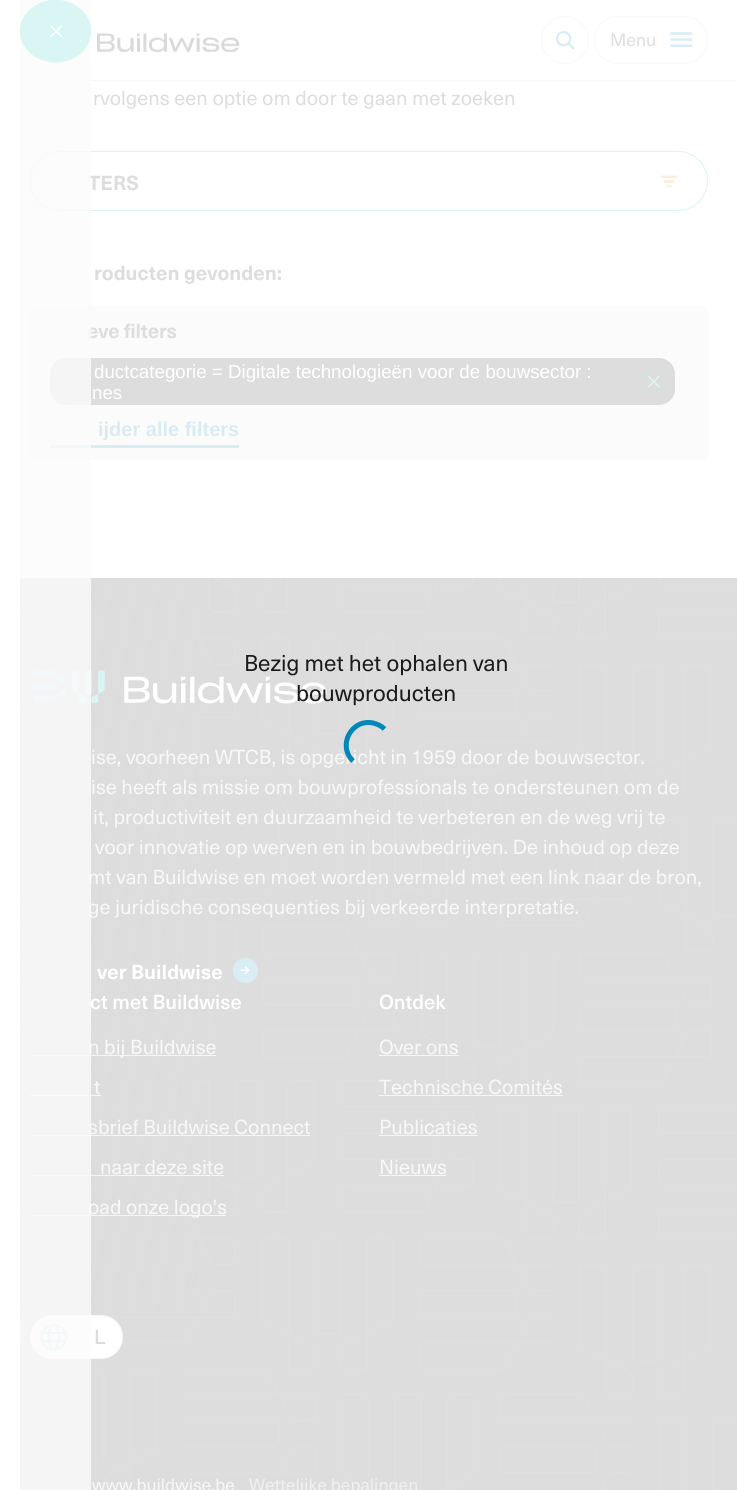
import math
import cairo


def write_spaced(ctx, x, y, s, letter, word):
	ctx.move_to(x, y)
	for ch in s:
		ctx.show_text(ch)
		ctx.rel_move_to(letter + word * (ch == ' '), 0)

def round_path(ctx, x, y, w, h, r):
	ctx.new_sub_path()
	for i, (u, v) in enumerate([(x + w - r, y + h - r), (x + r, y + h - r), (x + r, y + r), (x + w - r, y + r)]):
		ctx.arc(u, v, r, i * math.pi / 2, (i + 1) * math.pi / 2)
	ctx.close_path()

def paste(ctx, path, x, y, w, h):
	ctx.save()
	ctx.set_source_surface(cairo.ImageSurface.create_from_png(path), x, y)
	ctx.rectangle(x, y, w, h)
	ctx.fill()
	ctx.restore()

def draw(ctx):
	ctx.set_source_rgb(1, 1, 1)
	ctx.paint()
	ctx.set_source_rgb(0.976, 0.976, 0.976)
	ctx.rectangle(20, 80, 717, 1)
	ctx.fill()
	paste(ctx, 'media/1.png', 97, 32, 143, 21)
	ctx.arc(565, 40, 23.5, 0, 2 * math.pi)
	ctx.set_line_width(1)
	ctx.stroke()
	paste(ctx, 'media/2.png', 555, 31, 20, 19)
	round_path(ctx, 594.5, 16.5, 113, 47, 23.5)
	ctx.stroke()
	ctx.select_font_face('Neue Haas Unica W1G')
	ctx.set_font_size(17.5)
	ctx.set_source_rgb(0.867, 0.867, 0.867)
	ctx.move_to(610, 46)
	ctx.show_text('Menu')
	paste(ctx, 'media/3.png', 670, 32, 23, 15)
	ctx.set_font_size(20)
	ctx.move_to(93, 105)
	ctx.show_text('rvolgens een optie om door te gaan met zoeken')
	round_path(ctx, 30.5, 151.5, 677, 59, 29.5)
	ctx.set_source_rgb(0.851, 0.961, 0.957)
	ctx.stroke()
	ctx.select_font_face('Neue Haas Unica W1G', cairo.FONT_SLANT_NORMAL, cairo.FONT_WEIGHT_BOLD)
	ctx.set_source_rgb(0.867, 0.867, 0.867)
	ctx.move_to(88, 190)
	ctx.show_text('TERS')
	ctx.set_source_rgb(0.984, 0.984, 0.984)
	round_path(ctx, 30, 306, 678, 154, 6)
	ctx.fill()
	ctx.set_source_rgb(0.867, 0.867, 0.867)
	write_spaced(ctx, 87, 338, 'eve filters', -0.25, 0)
	round_path(ctx, 50, 358, 625, 47, 16)
	ctx.fill()
	ctx.set_source_rgb(0.851, 0.929, 0.957)
	ctx.rectangle(50, 445, 189, 3)
	ctx.fill()
	ctx.set_source_rgb(0.867, 0.867, 0.867)
	ctx.rectangle(20, 578, 717, 912)
	ctx.fill()
	paste(ctx, 'media/7.png', 20, 578, 717, 912)
	gradient = cairo.LinearGradient(-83, 994, 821, 1174)
	gradient.add_color_stop_rgba(0.01, 0.867, 0.867, 0.867, 1)
	gradient.add_color_stop_rgba(0.86, 0.867, 0.867, 0.867, 0)
	ctx.set_source(gradient)
	ctx.rectangle(22, 585, 177, 727)
	ctx.fill()
	paste(ctx, 'media/8.png', 33, 670, 294, 34)
	ctx.select_font_face('Neue Haas Unica W1G')
	ctx.set_source_rgb(0.969, 0.969, 0.969)
	ctx.move_to(88, 884)
	ctx.show_text('mt van Buildwise en moet worden vermeld met een link naar de bron,')
	ctx.move_to(88, 914)
	ctx.show_text('ge juridische consequenties bij verkeerde interpretatie.')
	ctx.select_font_face('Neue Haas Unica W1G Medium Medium')
	ctx.set_source_rgb(1, 1, 1)
	ctx.move_to(90, 1009)
	ctx.show_text('ct met Buildwise')
	ctx.set_source_rgba(1, 1, 1, 0.75)
	ctx.rectangle(30, 1055, 186, 1)
	ctx.fill()
	ctx.select_font_face('Neue Haas Unica W1G')
	ctx.set_source_rgb(0.969, 0.969, 0.969)
	ctx.move_to(88, 1054)
	ctx.show_text('n bij Buildwise')
	ctx.rectangle(30, 1095, 71, 1)
	ctx.fill()
	ctx.move_to(88, 1134)
	ctx.show_text('sbrief Buildwise Connect')
	ctx.set_source_rgba(1, 1, 1, 0.75)
	ctx.rectangle(30, 1135, 280, 1)
	ctx.fill()
	ctx.rectangle(30, 1175, 194, 1)
	ctx.fill()
	ctx.rectangle(30, 1215, 196, 1)
	ctx.fill()
	ctx.set_source_rgb(0.969, 0.969, 0.969)
	ctx.move_to(88, 1214)
	ctx.show_text('oad onze logo\'s')
	ctx.set_source_rgb(1, 1, 1)
	round_path(ctx, 30.5, 1315.5, 92, 43, 21.5)
	ctx.fill_preserve()
	ctx.set_source_rgb(0.976, 0.976, 0.976)
	ctx.stroke()
	paste(ctx, 'media/10.png', 40, 1324, 27, 27)
	ctx.set_source_rgba(0.984, 0.984, 0.984, 0.8)
	ctx.rectangle(20, 0, 71, 1490)
	ctx.fill()
	ctx.set_source_rgb(0.851, 0.961, 0.957)
	ctx.new_path()
	ctx.move_to(55.5, 0)
	ctx.curve_to(75, 0, 91, 14, 91, 31)
	ctx.curve_to(91, 48, 75, 62, 55.5, 62)
	ctx.curve_to(36, 62, 20, 48, 20, 31)
	ctx.curve_to(20, 14, 36, 0, 55.5, 0)
	ctx.close_path()
	ctx.fill()
	ctx.new_path()
	ctx.move_to(55.5, 0.5)
	ctx.curve_to(75, 0.5, 90.5, 14.5, 90.5, 31)
	ctx.curve_to(90.5, 48, 75, 62, 55.5, 62)
	ctx.curve_to(36.5, 62, 20.5, 48, 20.5, 31)
	ctx.curve_to(20.5, 14.5, 36.5, 0.5, 55.5, 0.5)
	ctx.close_path()
	ctx.set_line_width(1.2)
	ctx.stroke()
	paste(ctx, 'media/4.png', 50, 25, 13, 13)
	paste(ctx, 'media/5.png', 660, 175, 18, 13)
	ctx.select_font_face('Neue Haas Unica W1G', cairo.FONT_SLANT_NORMAL, cairo.FONT_WEIGHT_BOLD)
	ctx.set_source_rgb(0.867, 0.867, 0.867)
	ctx.move_to(94, 280)
	ctx.show_text('roducten gevonden:')
	ctx.select_font_face('Liberation Sans')
	ctx.set_font_size(18.75)
	ctx.set_source_rgb(1, 1, 1)
	ctx.move_to(94, 378)
	ctx.show_text('ductcategorie = Digitale technologieën voor de bouwsector :')
	ctx.move_to(92, 399)
	ctx.show_text('nes')
	paste(ctx, 'media/6.png', 647, 375, 13, 13)
	ctx.select_font_face('Liberation Sans', cairo.FONT_SLANT_NORMAL, cairo.FONT_WEIGHT_BOLD)
	ctx.set_font_size(20)
	ctx.set_source_rgb(0.851, 0.925, 0.953)
	ctx.move_to(98, 436)
	ctx.show_text('ijder alle filters')
	ctx.select_font_face('Neue Haas Unica W1G')
	ctx.set_font_size(22.5)
	ctx.set_source_rgb(0.106, 0.106, 0.106)
	ctx.move_to(244, 671)
	ctx.show_text('Bezig met het ophalen van')
	ctx.move_to(296, 701)
	ctx.show_text('bouwproducten')
	ctx.set_font_size(20)
	ctx.set_source_rgb(0.969, 0.969, 0.969)
	ctx.move_to(91, 764)
	ctx.show_text('ise, voorheen WTCB, is opgericht in 1959 door de bouwsector.')
	ctx.new_path()
	ctx.move_to(353, 761)
	ctx.curve_to(337, 745.5, 351.5, 718.5, 373, 723)
	ctx.curve_to(377.5, 724, 381.5, 726, 384.5, 729)
	ctx.set_source_rgb(0, 0.529, 0.718)
	ctx.set_line_width(5)
	ctx.stroke()
	ctx.set_source_rgb(0.969, 0.969, 0.969)
	for x, y, s in [
		(91, 794, 'ise heeft als missie om bouwprofessionals te ondersteunen om de'),
		(93, 824, 'it, productiviteit en duurzaamheid te verbeteren en de weg vrij te'),
		(95, 854, 'voor innovatie op werven en in bouwbedrijven. De inhoud op deze'),
	]:
		ctx.move_to(x, y)
		ctx.show_text(s)
	ctx.select_font_face('Neue Haas Unica W1G', cairo.FONT_SLANT_NORMAL, cairo.FONT_WEIGHT_BOLD)
	ctx.set_source_rgb(1, 1, 1)
	ctx.move_to(97, 979)
	ctx.show_text('ver Buildwise')
	ctx.set_source_rgb(0.851, 0.929, 0.957)
	ctx.new_path()
	ctx.arc(245.5, 970.5, 12.5, 0, 2 * math.pi)
	ctx.fill()
	paste(ctx, 'media/9.png', 240, 966, 10, 8)
	ctx.select_font_face('Neue Haas Unica W1G')
	ctx.set_source_rgb(0.969, 0.969, 0.969)
	ctx.move_to(94, 1094)
	ctx.show_text('t')
	ctx.move_to(100, 1174)
	ctx.show_text('naar deze site')
	ctx.select_font_face('Neue Haas Unica W1G Medium Medium')
	ctx.set_source_rgb(1, 1, 1)
	ctx.move_to(379, 1009)
	ctx.show_text('Ontdek')
	ctx.select_font_face('Neue Haas Unica W1G')
	ctx.set_source_rgb(0.969, 0.969, 0.969)
	ctx.move_to(379, 1054)
	ctx.show_text('Over ons')
	ctx.set_source_rgba(1, 1, 1, 0.75)
	ctx.rectangle(379, 1055, 80, 1)
	ctx.fill()
	ctx.set_source_rgb(0.969, 0.969, 0.969)
	ctx.move_to(379, 1094)
	ctx.show_text('Technische Comités')
	ctx.set_source_rgba(1, 1, 1, 0.75)
	ctx.rectangle(379, 1095, 184, 1)
	ctx.fill()
	ctx.set_source_rgb(0.969, 0.969, 0.969)
	ctx.move_to(379, 1134)
	ctx.show_text('Publicaties')
	ctx.set_source_rgba(1, 1, 1, 0.75)
	ctx.rectangle(379, 1135, 99, 1)
	ctx.fill()
	ctx.set_source_rgb(0.969, 0.969, 0.969)
	ctx.move_to(379, 1174)
	ctx.show_text('Nieuws')
	ctx.set_source_rgba(1, 1, 1, 0.75)
	ctx.rectangle(379, 1175, 67, 1)
	ctx.fill()
	ctx.select_font_face('Neue Haas Unica W1G Medium Medium')
	ctx.set_source_rgb(0.867, 0.867, 0.867)
	ctx.move_to(94, 1344)
	ctx.show_text('L')
	ctx.select_font_face('Neue Haas Unica W1G')
	ctx.set_font_size(17.5)
	ctx.set_source_rgb(0.969, 0.969, 0.969)
	ctx.move_to(92, 1491)
	ctx.show_text('www.buildwise.be')
	ctx.set_source_rgb(0.941, 0.941, 0.941)
	ctx.move_to(249, 1491)
	ctx.show_text('Wettelijke bepalingen')


surface = cairo.ImageSurface(cairo.FORMAT_RGB24, 737, 1490)
ctx = cairo.Context(surface)
options = cairo.FontOptions()
options.set_hint_metrics(cairo.HINT_METRICS_OFF)
options.set_hint_style(cairo.HINT_STYLE_NONE)
ctx.set_font_options(options)
ctx.set_miter_limit(4)
draw(ctx)
surface.write_to_png('image.png')
